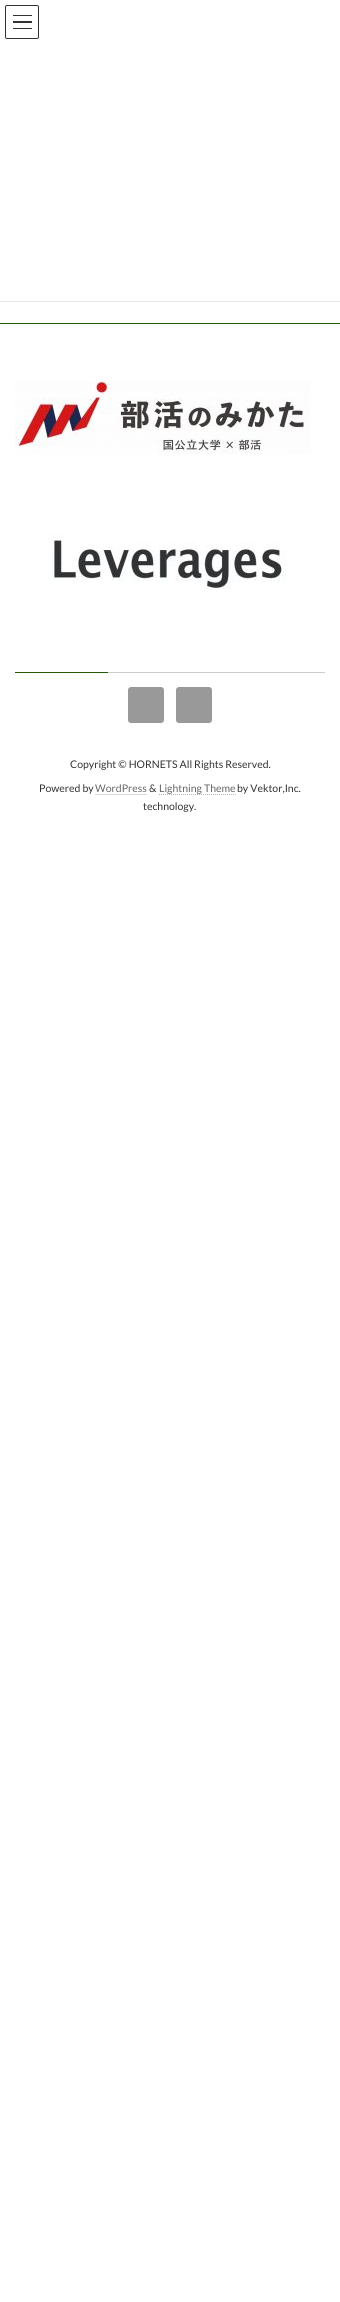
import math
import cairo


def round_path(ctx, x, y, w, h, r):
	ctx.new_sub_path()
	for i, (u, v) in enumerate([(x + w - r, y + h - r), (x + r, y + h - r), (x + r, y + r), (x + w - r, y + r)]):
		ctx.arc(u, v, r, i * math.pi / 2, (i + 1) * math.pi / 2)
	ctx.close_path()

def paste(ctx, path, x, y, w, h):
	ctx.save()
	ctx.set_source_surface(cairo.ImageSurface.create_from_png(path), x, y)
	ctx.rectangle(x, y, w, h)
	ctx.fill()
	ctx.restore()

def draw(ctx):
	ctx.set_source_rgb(1, 1, 1)
	ctx.paint()
	ctx.set_source_rgb(0.2, 0.2, 0.2)
	ctx.rectangle(13, 15, 19, 1)
	ctx.rectangle(13, 21, 19, 2)
	ctx.rectangle(13, 28, 19, 1)
	ctx.fill()
	round_path(ctx, 5.5, 5.5, 33, 33, 1.5)
	ctx.set_line_width(1)
	ctx.stroke()
	ctx.set_source_rgb(0.898, 0.898, 0.898)
	ctx.rectangle(0, 301, 340, 1)
	ctx.fill()
	ctx.set_source_rgb(0.149, 0.361, 0)
	ctx.rectangle(0, 323, 340, 1)
	ctx.fill()
	paste(ctx, 'media/1.png', 15, 381, 296, 73)
	paste(ctx, 'media/2.png', 47, 534, 240, 56)
	ctx.set_source_rgb(0.8, 0.8, 0.8)
	ctx.rectangle(108, 672, 217, 1)
	ctx.fill()
	ctx.set_source_rgb(0.149, 0.361, 0)
	ctx.rectangle(15, 672, 93, 1)
	ctx.fill()
	ctx.set_source_rgb(0.6, 0.6, 0.6)
	round_path(ctx, 128, 687, 36, 36, 3)
	ctx.fill()
	round_path(ctx, 176, 687, 36, 36, 3)
	ctx.fill()
	ctx.select_font_face('Lato')
	ctx.set_font_size(10.5)
	ctx.set_source_rgb(0.2, 0.2, 0.2)
	ctx.move_to(70, 768)
	ctx.show_text('Copyright © HORNETS All Rights Reserved.')
	ctx.move_to(39, 792)
	ctx.show_text('Powered by')
	ctx.set_source_rgb(0.4, 0.4, 0.4)
	ctx.move_to(95, 792)
	ctx.show_text('WordPress')
	ctx.new_path()
	ctx.move_to(95.5, 794.5)
	ctx.line_to(147.5, 794.5)
	ctx.set_source_rgb(0.702, 0.702, 0.702)
	ctx.set_dash([1, 1])
	ctx.stroke()
	ctx.set_source_rgb(0.2, 0.2, 0.2)
	ctx.move_to(149, 792)
	ctx.show_text('&')
	ctx.set_source_rgb(0.4, 0.4, 0.4)
	ctx.move_to(159, 792)
	ctx.show_text('Lightning Theme')
	ctx.new_path()
	ctx.move_to(159, 794.5)
	ctx.line_to(235.5, 794.5)
	ctx.set_source_rgb(0.702, 0.702, 0.702)
	ctx.stroke()
	ctx.set_source_rgb(0.2, 0.2, 0.2)
	ctx.move_to(237, 792)
	ctx.show_text('by Vektor,Inc.')
	ctx.move_to(143, 810)
	ctx.show_text('technology.')


surface = cairo.ImageSurface(cairo.FORMAT_RGB24, 340, 2302)
ctx = cairo.Context(surface)
options = cairo.FontOptions()
options.set_hint_metrics(cairo.HINT_METRICS_OFF)
options.set_hint_style(cairo.HINT_STYLE_NONE)
ctx.set_font_options(options)
ctx.set_miter_limit(4)
draw(ctx)
surface.write_to_png('image.png')
